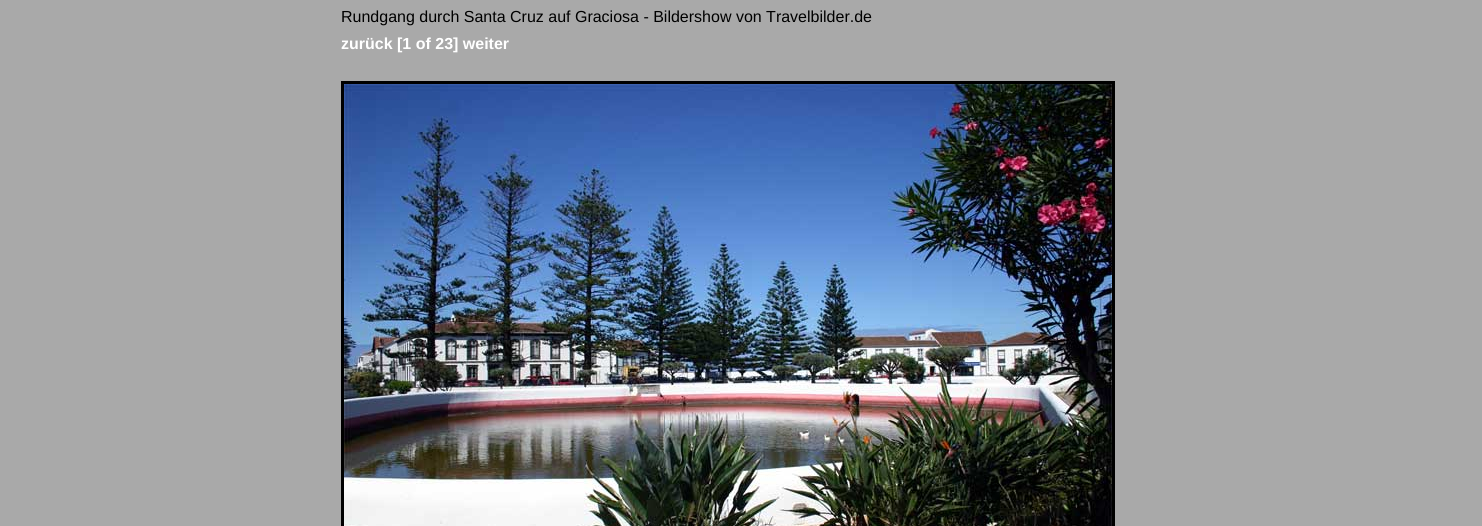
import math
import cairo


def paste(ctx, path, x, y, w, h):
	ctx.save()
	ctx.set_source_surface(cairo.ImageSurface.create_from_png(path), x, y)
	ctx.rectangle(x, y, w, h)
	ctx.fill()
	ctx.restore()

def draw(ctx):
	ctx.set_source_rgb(0.663, 0.663, 0.663)
	ctx.paint()
	ctx.select_font_face('Liberation Sans')
	ctx.set_font_size(16)
	ctx.set_source_rgb(0, 0, 0)
	ctx.move_to(341, 22)
	ctx.show_text('Rundgang durch Santa Cruz auf Graciosa - Bildershow von Travelbilder.de')
	ctx.select_font_face('Liberation Sans', cairo.FONT_SLANT_NORMAL, cairo.FONT_WEIGHT_BOLD)
	ctx.set_source_rgb(1, 1, 1)
	ctx.move_to(341, 49)
	ctx.show_text('zurück [1 of 23] weiter')
	ctx.set_source_rgb(0, 0, 0)
	ctx.rectangle(341, 81, 774, 445)
	ctx.fill()
	paste(ctx, 'media/1.png', 344, 84, 768, 442)


surface = cairo.ImageSurface(cairo.FORMAT_RGB24, 1482, 526)
ctx = cairo.Context(surface)
options = cairo.FontOptions()
options.set_hint_metrics(cairo.HINT_METRICS_OFF)
options.set_hint_style(cairo.HINT_STYLE_NONE)
ctx.set_font_options(options)
ctx.set_miter_limit(4)
draw(ctx)
surface.write_to_png('image.png')
